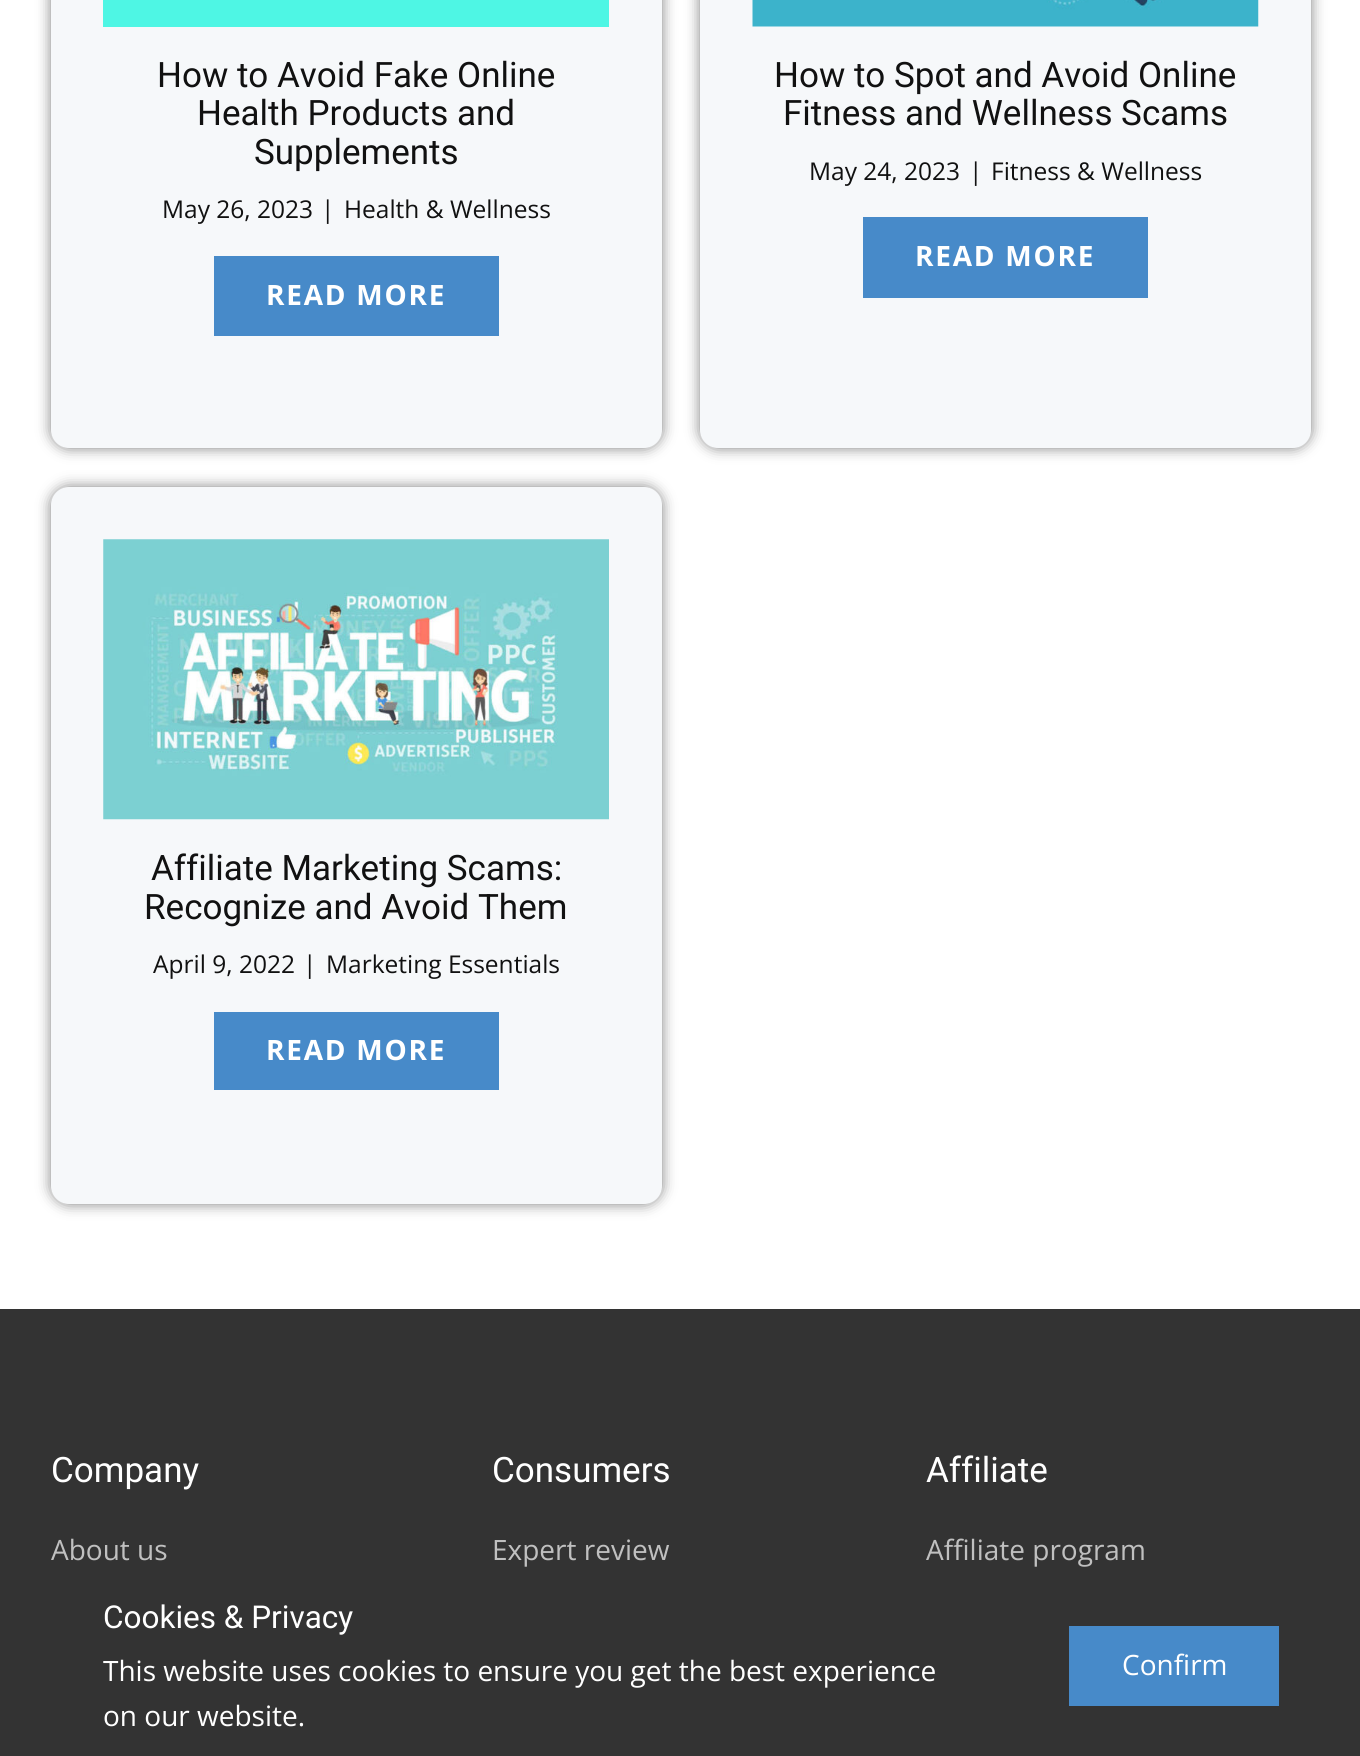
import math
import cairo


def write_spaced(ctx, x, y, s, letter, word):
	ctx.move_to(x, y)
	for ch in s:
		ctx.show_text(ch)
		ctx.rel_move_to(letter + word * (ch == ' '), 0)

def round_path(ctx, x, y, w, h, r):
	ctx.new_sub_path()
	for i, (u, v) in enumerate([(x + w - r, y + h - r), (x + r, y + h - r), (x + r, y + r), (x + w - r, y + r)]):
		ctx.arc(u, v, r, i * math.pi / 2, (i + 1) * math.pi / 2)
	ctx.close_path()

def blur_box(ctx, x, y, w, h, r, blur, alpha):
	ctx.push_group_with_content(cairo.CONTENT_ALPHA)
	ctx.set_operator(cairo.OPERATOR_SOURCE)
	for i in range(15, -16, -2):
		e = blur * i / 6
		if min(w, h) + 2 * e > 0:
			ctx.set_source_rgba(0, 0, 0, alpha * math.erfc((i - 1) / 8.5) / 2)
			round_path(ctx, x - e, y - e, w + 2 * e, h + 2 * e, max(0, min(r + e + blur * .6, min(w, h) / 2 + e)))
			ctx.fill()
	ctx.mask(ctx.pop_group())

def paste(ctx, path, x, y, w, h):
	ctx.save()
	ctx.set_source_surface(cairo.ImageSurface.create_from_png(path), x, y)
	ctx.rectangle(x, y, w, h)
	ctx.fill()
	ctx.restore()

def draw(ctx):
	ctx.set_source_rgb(1, 1, 1)
	ctx.paint()
	ctx.set_source_rgb(0.502, 0.502, 0.502)
	blur_box(ctx, 51, -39, 611, 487, 18, 7, 1)
	ctx.set_source_rgb(0.961, 0.969, 0.98)
	round_path(ctx, 51, -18, 611, 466, 18)
	ctx.fill()
	ctx.set_source_rgb(0.306, 0.961, 0.894)
	ctx.rectangle(103, 0, 506, 27)
	ctx.fill()
	ctx.select_font_face('Roboto')
	ctx.set_font_size(35)
	ctx.set_source_rgb(0.067, 0.067, 0.067)
	for x, y, s in [
		(157, 87, 'How to Avoid Fake Online'),
		(197, 125, 'Health Products and'),
		(254, 164, 'Supplements'),
	]:
		ctx.move_to(x, y)
		ctx.show_text(s)
	ctx.select_font_face('Open Sans')
	ctx.set_font_size(24.5)
	for x, y, s in [
		(162, 218, 'May 26, 2023'),
		(321, 218, '|'),
		(344, 218, 'Health & Wellness'),
	]:
		ctx.move_to(x, y)
		ctx.show_text(s)
	ctx.set_source_rgb(0.278, 0.541, 0.788)
	ctx.rectangle(214, 256, 285, 80)
	ctx.fill()
	ctx.select_font_face('Open Sans', cairo.FONT_SLANT_NORMAL, cairo.FONT_WEIGHT_BOLD)
	ctx.set_font_size(28)
	ctx.set_source_rgb(1, 1, 1)
	write_spaced(ctx, 266, 305, 'READ MORE', 1.75, 0)
	ctx.set_source_rgb(0.502, 0.502, 0.502)
	blur_box(ctx, 700, -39, 611, 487, 18, 7, 1)
	ctx.set_source_rgb(0.961, 0.969, 0.98)
	round_path(ctx, 700, -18, 611, 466, 18)
	ctx.fill()
	paste(ctx, 'media/1.png', 752, 0, 507, 27)
	ctx.select_font_face('Roboto')
	ctx.set_font_size(35)
	ctx.set_source_rgb(0.067, 0.067, 0.067)
	ctx.move_to(774, 87)
	ctx.show_text('How to Spot and Avoid Online')
	ctx.move_to(783, 125)
	ctx.show_text('Fitness and Wellness Scams')
	ctx.select_font_face('Open Sans')
	ctx.set_font_size(24.5)
	for x, y, s in [
		(809, 180, 'May 24, 2023'),
		(969, 180, '|'),
		(991, 180, 'Fitness & Wellness'),
	]:
		ctx.move_to(x, y)
		ctx.show_text(s)
	ctx.set_source_rgb(0.278, 0.541, 0.788)
	ctx.rectangle(863, 217, 285, 81)
	ctx.fill()
	ctx.select_font_face('Open Sans', cairo.FONT_SLANT_NORMAL, cairo.FONT_WEIGHT_BOLD)
	ctx.set_font_size(28)
	ctx.set_source_rgb(1, 1, 1)
	write_spaced(ctx, 915, 266, 'READ MORE', 1.75, 0)
	ctx.set_source_rgb(0.502, 0.502, 0.502)
	blur_box(ctx, 51, 487, 611, 717, 18, 7, 1)
	ctx.set_source_rgb(0.961, 0.969, 0.98)
	round_path(ctx, 51, 487, 611, 717, 18)
	ctx.fill()
	paste(ctx, 'media/2.png', 103, 539, 506, 281)
	ctx.select_font_face('Roboto')
	ctx.set_font_size(35)
	ctx.set_source_rgb(0.067, 0.067, 0.067)
	ctx.move_to(151, 880)
	ctx.show_text('Affiliate Marketing Scams:')
	ctx.move_to(144, 919)
	ctx.show_text('Recognize and Avoid Them')
	ctx.select_font_face('Open Sans')
	ctx.set_font_size(24.5)
	for x, y, s in [
		(153, 973, 'April 9, 2022'),
		(303, 973, '|'),
		(326, 973, 'Marketing Essentials'),
	]:
		ctx.move_to(x, y)
		ctx.show_text(s)
	ctx.set_source_rgb(0.278, 0.541, 0.788)
	ctx.rectangle(214, 1012, 285, 78)
	ctx.fill()
	ctx.select_font_face('Open Sans', cairo.FONT_SLANT_NORMAL, cairo.FONT_WEIGHT_BOLD)
	ctx.set_font_size(28)
	ctx.set_source_rgb(1, 1, 1)
	write_spaced(ctx, 266, 1060, 'READ MORE', 1.75, 0)
	ctx.set_source_rgb(0.2, 0.2, 0.2)
	ctx.rectangle(0, 1309, 1360, 447)
	ctx.fill()
	ctx.select_font_face('Roboto')
	ctx.set_font_size(35)
	ctx.set_source_rgb(1, 1, 1)
	ctx.move_to(51, 1482)
	ctx.show_text('Company')
	ctx.select_font_face('Open Sans')
	ctx.set_font_size(28)
	ctx.set_source_rgb(0.753, 0.753, 0.753)
	ctx.move_to(51, 1560)
	ctx.show_text('About us')
	ctx.select_font_face('Roboto')
	ctx.set_font_size(35)
	ctx.set_source_rgb(1, 1, 1)
	ctx.move_to(492, 1482)
	ctx.show_text('Consumers')
	ctx.select_font_face('Open Sans')
	ctx.set_font_size(28)
	ctx.set_source_rgb(0.753, 0.753, 0.753)
	ctx.move_to(492, 1560)
	ctx.show_text('Expert review')
	ctx.select_font_face('Roboto')
	ctx.set_font_size(35)
	ctx.set_source_rgb(1, 1, 1)
	ctx.move_to(926, 1482)
	ctx.show_text('Affiliate')
	ctx.select_font_face('Open Sans')
	ctx.set_font_size(28)
	ctx.set_source_rgb(0.753, 0.753, 0.753)
	ctx.move_to(926, 1560)
	ctx.show_text('Affiliate program')
	ctx.select_font_face('Roboto')
	ctx.set_font_size(31.5)
	ctx.set_source_rgb(1, 1, 1)
	ctx.move_to(103, 1628)
	ctx.show_text('Cookies & Privacy')
	ctx.select_font_face('Open Sans')
	ctx.set_font_size(28)
	ctx.move_to(103, 1681)
	ctx.show_text('This website uses cookies to ensure you get the best experience')
	ctx.move_to(103, 1726)
	ctx.show_text('on our website.')
	ctx.set_source_rgb(0.278, 0.541, 0.788)
	ctx.rectangle(1069, 1626, 210, 80)
	ctx.fill()
	ctx.set_source_rgb(1, 1, 1)
	ctx.move_to(1122, 1675)
	ctx.show_text('Confirm')


surface = cairo.ImageSurface(cairo.FORMAT_RGB24, 1360, 1756)
ctx = cairo.Context(surface)
options = cairo.FontOptions()
options.set_hint_metrics(cairo.HINT_METRICS_OFF)
options.set_hint_style(cairo.HINT_STYLE_NONE)
ctx.set_font_options(options)
ctx.set_miter_limit(4)
draw(ctx)
surface.write_to_png('image.png')
